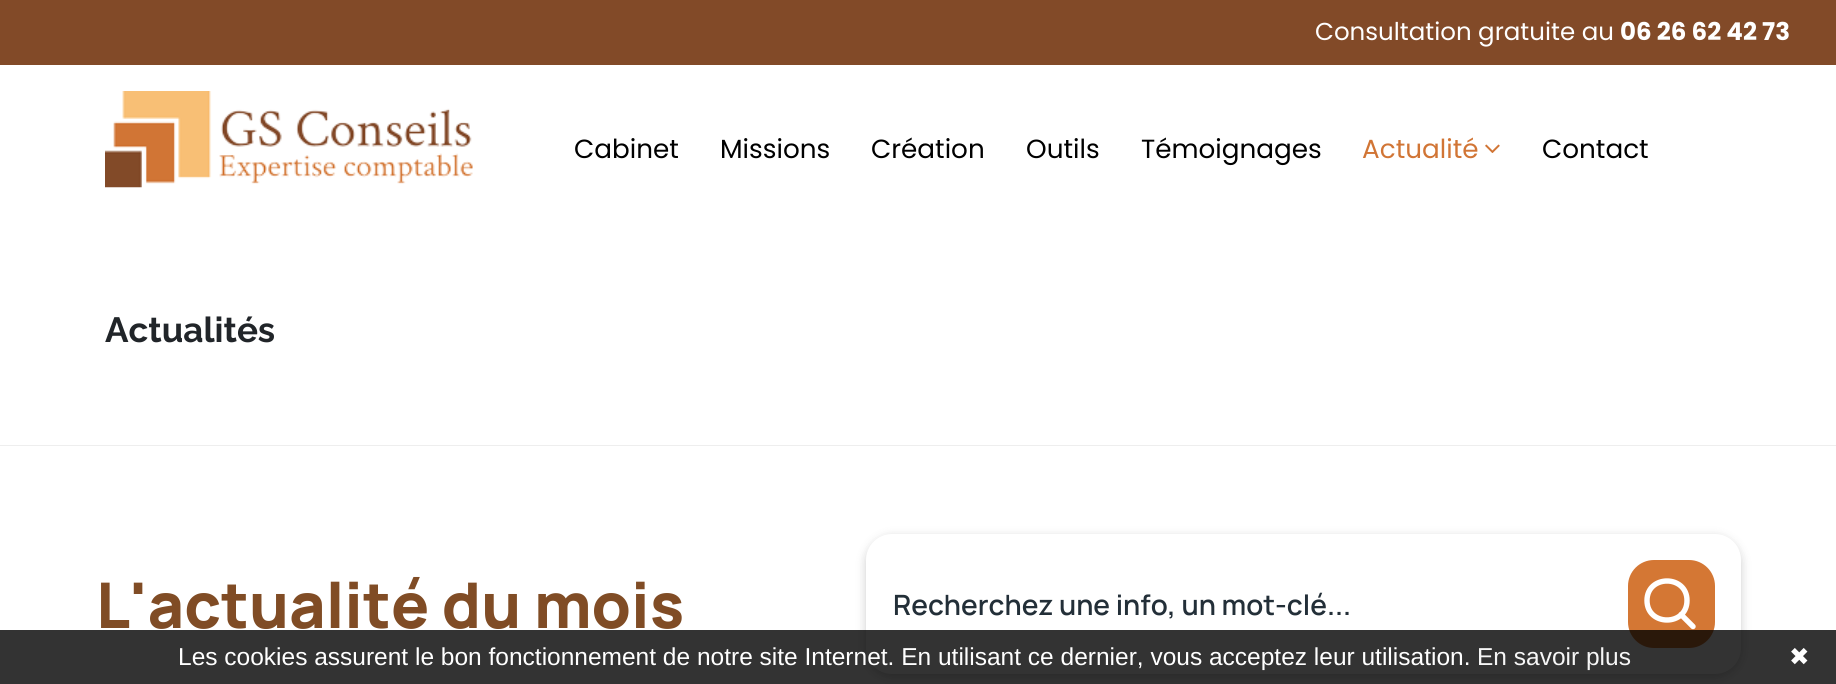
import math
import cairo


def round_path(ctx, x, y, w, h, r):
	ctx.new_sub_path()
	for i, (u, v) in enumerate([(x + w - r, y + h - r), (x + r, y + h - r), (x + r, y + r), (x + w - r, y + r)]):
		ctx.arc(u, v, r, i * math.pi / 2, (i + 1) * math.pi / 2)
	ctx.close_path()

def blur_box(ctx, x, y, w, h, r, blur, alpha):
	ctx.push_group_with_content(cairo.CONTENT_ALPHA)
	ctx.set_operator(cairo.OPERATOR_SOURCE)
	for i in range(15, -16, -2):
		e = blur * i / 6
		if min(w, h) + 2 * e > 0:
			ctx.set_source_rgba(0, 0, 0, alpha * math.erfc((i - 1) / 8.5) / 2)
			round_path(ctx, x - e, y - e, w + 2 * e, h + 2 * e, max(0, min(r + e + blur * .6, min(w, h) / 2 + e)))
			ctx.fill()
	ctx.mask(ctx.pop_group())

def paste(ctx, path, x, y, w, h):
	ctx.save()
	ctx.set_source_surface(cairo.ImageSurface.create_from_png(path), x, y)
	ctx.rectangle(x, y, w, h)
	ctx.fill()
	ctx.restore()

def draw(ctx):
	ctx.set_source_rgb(1, 1, 1)
	ctx.paint()
	ctx.set_source_rgb(0.51, 0.29, 0.157)
	ctx.rectangle(0, 0, 1836, 65)
	ctx.fill()
	ctx.select_font_face('Poppins')
	ctx.set_font_size(24.5)
	ctx.set_source_rgb(1, 1, 1)
	ctx.move_to(1315, 40)
	ctx.show_text('Consultation gratuite au')
	ctx.select_font_face('Poppins', cairo.FONT_SLANT_NORMAL, cairo.FONT_WEIGHT_BOLD)
	ctx.move_to(1620, 40)
	ctx.show_text('06 26 62 42 73')
	paste(ctx, 'media/1.png', 105, 91, 368, 97)
	ctx.select_font_face('Poppins')
	ctx.set_font_size(26.25)
	ctx.set_source_rgb(0, 0, 0)
	for x, y, s in [
		(574, 158, 'Cabinet'),
		(720, 158, 'Missions'),
		(871, 158, 'Création'),
		(1026, 158, 'Outils'),
		(1141, 158, 'Témoignages'),
	]:
		ctx.move_to(x, y)
		ctx.show_text(s)
	ctx.set_source_rgb(0.82, 0.459, 0.208)
	ctx.move_to(1362, 158)
	ctx.show_text('Actualité')
	paste(ctx, 'media/2.png', 1485, 144, 15, 9)
	ctx.set_source_rgb(0, 0, 0)
	ctx.move_to(1542, 158)
	ctx.show_text('Contact')
	ctx.set_source_rgb(0.933, 0.933, 0.933)
	ctx.rectangle(0, 445, 1836, 1)
	ctx.fill()
	ctx.select_font_face('Raleway', cairo.FONT_SLANT_NORMAL, cairo.FONT_WEIGHT_BOLD)
	ctx.set_font_size(35)
	ctx.set_source_rgb(0.129, 0.145, 0.161)
	ctx.move_to(105, 342)
	ctx.show_text('Actualités')
	ctx.select_font_face('Manrope ExtraBold')
	ctx.set_font_size(63)
	ctx.set_source_rgb(0.502, 0.298, 0.145)
	ctx.move_to(96, 628)
	ctx.show_text('L\'actualité du mois')
	ctx.set_source_rgb(0, 0, 0)
	blur_box(ctx, 866, 537, 875, 140, 26, 5, 0.2)
	ctx.set_source_rgb(1, 1, 1)
	round_path(ctx, 866, 534, 875, 140, 26)
	ctx.fill()
	ctx.select_font_face('Manrope SemiBold')
	ctx.set_font_size(28)
	ctx.set_source_rgb(0.137, 0.184, 0.22)
	ctx.move_to(893, 615)
	ctx.show_text('Recherchez une info, un mot-clé...')
	ctx.set_source_rgb(0.831, 0.467, 0.204)
	round_path(ctx, 1628, 560, 87, 88, 26)
	ctx.fill()
	ctx.new_path()
	ctx.move_to(1693, 626.5)
	ctx.line_to(1681, 614.5)
	ctx.move_to(1647, 600.5)
	ctx.curve_to(1647, 574.5, 1687, 574.5, 1687, 600.5)
	ctx.curve_to(1687, 626.5, 1647, 626.5, 1647, 600.5)
	ctx.close_path()
	ctx.set_source_rgb(1, 1, 1)
	ctx.set_line_width(5.4)
	ctx.set_line_cap(cairo.LINE_CAP_ROUND)
	ctx.set_line_join(cairo.LINE_JOIN_ROUND)
	ctx.stroke()
	ctx.set_source_rgba(0, 0, 0, 0.8)
	ctx.rectangle(0, 630, 1836, 54)
	ctx.fill()
	ctx.select_font_face('Liberation Sans')
	ctx.set_font_size(24.5)
	ctx.set_source_rgb(1, 1, 1)
	ctx.move_to(178, 665)
	ctx.show_text('Les cookies assurent le bon fonctionnement de notre site Internet. En utilisant ce dernier, vous acceptez leur utilisation.')
	ctx.set_source_rgb(0.961, 0.961, 0.961)
	ctx.move_to(1477, 665)
	ctx.show_text('En savoir plus')
	ctx.select_font_face('DejaVu Sans')
	ctx.set_source_rgb(1, 1, 1)
	ctx.move_to(1789, 665)
	ctx.show_text('✖')


surface = cairo.ImageSurface(cairo.FORMAT_RGB24, 1836, 684)
ctx = cairo.Context(surface)
options = cairo.FontOptions()
options.set_hint_metrics(cairo.HINT_METRICS_OFF)
options.set_hint_style(cairo.HINT_STYLE_NONE)
ctx.set_font_options(options)
ctx.set_miter_limit(4)
draw(ctx)
surface.write_to_png('image.png')
